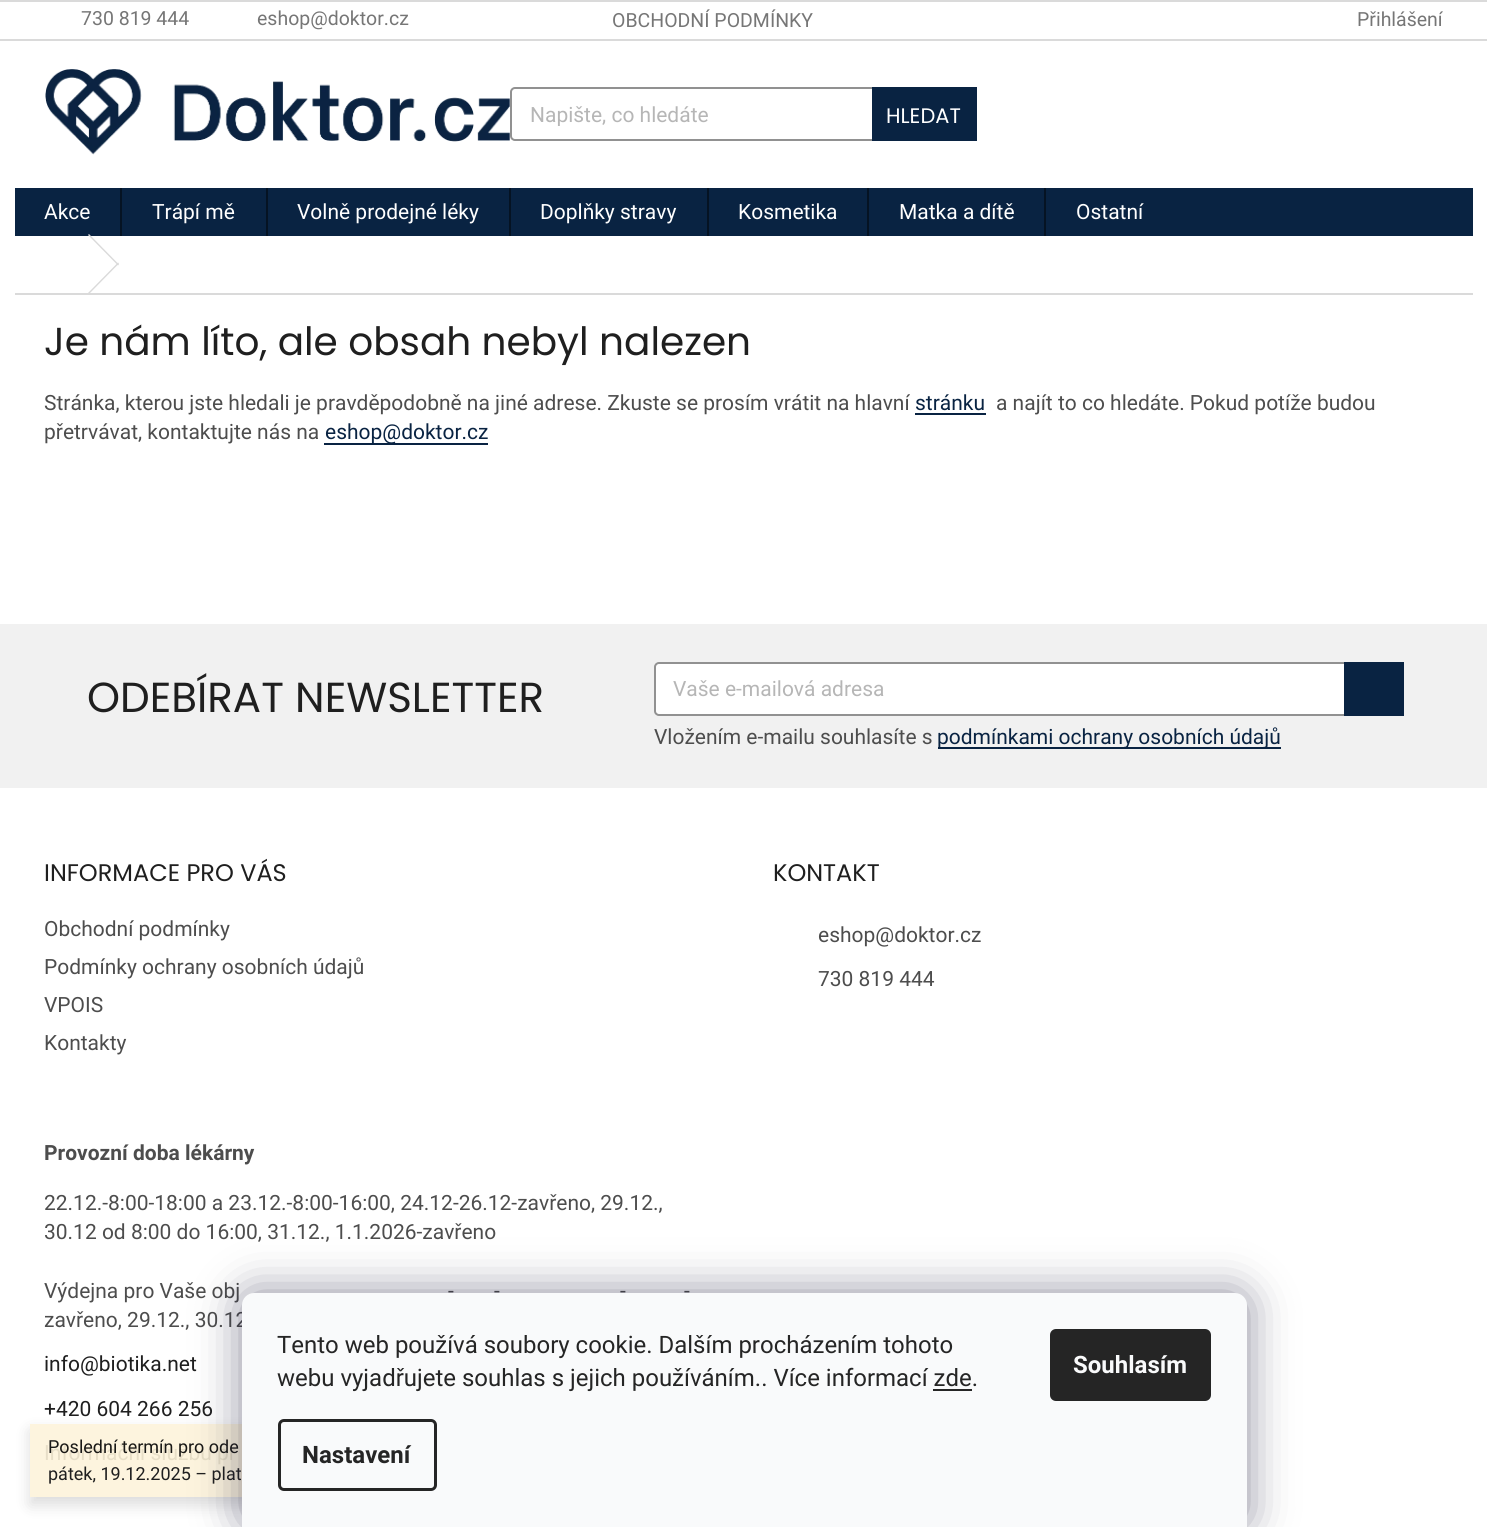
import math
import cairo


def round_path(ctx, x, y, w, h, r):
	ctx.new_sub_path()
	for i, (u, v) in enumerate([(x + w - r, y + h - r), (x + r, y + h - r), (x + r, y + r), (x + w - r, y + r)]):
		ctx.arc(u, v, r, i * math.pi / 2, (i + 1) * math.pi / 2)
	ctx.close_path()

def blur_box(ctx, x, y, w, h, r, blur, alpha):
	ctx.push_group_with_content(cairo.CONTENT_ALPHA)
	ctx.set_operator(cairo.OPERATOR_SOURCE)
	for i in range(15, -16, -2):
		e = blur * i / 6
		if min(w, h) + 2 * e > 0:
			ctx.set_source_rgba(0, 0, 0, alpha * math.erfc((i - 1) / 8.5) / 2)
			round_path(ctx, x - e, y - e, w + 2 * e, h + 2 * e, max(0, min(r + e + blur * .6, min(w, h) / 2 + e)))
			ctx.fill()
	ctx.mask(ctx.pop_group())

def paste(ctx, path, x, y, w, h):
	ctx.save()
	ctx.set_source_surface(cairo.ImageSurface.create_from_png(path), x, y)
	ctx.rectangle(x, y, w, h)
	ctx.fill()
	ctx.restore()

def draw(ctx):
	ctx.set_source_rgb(1, 1, 1)
	ctx.paint()
	ctx.set_source_rgb(0.992, 0.957, 0.871)
	ctx.rectangle(30, 1424, 212, 73)
	ctx.fill()
	ctx.set_source_rgb(0.855, 0.855, 0.855)
	ctx.rectangle(0, 0, 1487, 2)
	ctx.rectangle(0, 39, 1487, 2)
	ctx.fill()
	ctx.select_font_face('Roboto')
	ctx.set_font_size(19.5)
	ctx.set_source_rgb(0.463, 0.463, 0.463)
	for x, y, s in [
		(81, 25, '730 819 444'),
		(257, 25, 'eshop@doktor.cz'),
		(612, 27, 'OBCHODNÍ PODMÍNKY'),
		(1357, 26, 'Přihlášení'),
	]:
		ctx.move_to(x, y)
		ctx.show_text(s)
	paste(ctx, 'media/1.png', 45, 69, 465, 86)
	round_path(ctx, 511, 88, 465, 52, 4)
	ctx.set_source_rgb(0.569, 0.569, 0.569)
	ctx.stroke()
	ctx.save()
	ctx.rectangle(530, 102, 334, 24)
	ctx.clip()
	ctx.set_font_size(21)
	ctx.set_source_rgb(0.714, 0.714, 0.714)
	ctx.move_to(530, 122)
	ctx.show_text('Napište, co hledáte')
	ctx.restore()
	ctx.set_source_rgb(0.039, 0.137, 0.259)
	ctx.rectangle(872, 87, 105, 54)
	ctx.fill()
	ctx.select_font_face('Poppins')
	ctx.set_font_size(21)
	ctx.set_source_rgb(1, 1, 1)
	ctx.move_to(886, 123)
	ctx.show_text('HLEDAT')
	ctx.set_source_rgb(0.039, 0.137, 0.259)
	ctx.rectangle(15, 188, 1458, 48)
	ctx.fill()
	ctx.select_font_face('Roboto')
	ctx.set_source_rgb(1, 1, 1)
	ctx.move_to(44, 219)
	ctx.show_text('Akce')
	ctx.set_source_rgb(0.02, 0.075, 0.137)
	ctx.rectangle(120, 188, 2, 48)
	ctx.fill()
	ctx.set_source_rgb(1, 1, 1)
	ctx.move_to(152, 219)
	ctx.show_text('Trápí mě')
	ctx.set_source_rgb(0.02, 0.075, 0.137)
	ctx.rectangle(266, 188, 2, 48)
	ctx.fill()
	ctx.set_source_rgb(1, 1, 1)
	ctx.move_to(297, 219)
	ctx.show_text('Volně prodejné léky')
	ctx.set_source_rgb(0.02, 0.075, 0.137)
	ctx.rectangle(509, 188, 2, 48)
	ctx.fill()
	ctx.set_source_rgb(1, 1, 1)
	ctx.move_to(540, 219)
	ctx.show_text('Doplňky stravy')
	ctx.set_source_rgb(0.02, 0.075, 0.137)
	ctx.rectangle(707, 188, 2, 48)
	ctx.fill()
	ctx.set_source_rgb(1, 1, 1)
	ctx.move_to(738, 219)
	ctx.show_text('Kosmetika')
	ctx.set_source_rgb(0.02, 0.075, 0.137)
	ctx.rectangle(867, 188, 2, 48)
	ctx.fill()
	ctx.set_source_rgb(1, 1, 1)
	ctx.move_to(899, 219)
	ctx.show_text('Matka a dítě')
	ctx.set_source_rgb(0.02, 0.075, 0.137)
	ctx.rectangle(1044, 188, 2, 48)
	ctx.fill()
	ctx.set_source_rgb(1, 1, 1)
	ctx.move_to(1076, 219)
	ctx.show_text('Ostatní')
	ctx.set_source_rgb(0.855, 0.855, 0.855)
	ctx.rectangle(15, 293, 1458, 2)
	ctx.fill()
	ctx.new_path()
	ctx.move_to(88, 235)
	ctx.line_to(89, 234)
	ctx.line_to(119, 264.5)
	ctx.line_to(118, 265.5)
	ctx.close_path()
	ctx.fill()
	ctx.new_path()
	ctx.move_to(118, 262.5)
	ctx.line_to(119, 263.5)
	ctx.line_to(89, 294)
	ctx.line_to(88, 293)
	ctx.close_path()
	ctx.fill()
	ctx.select_font_face('Poppins')
	ctx.set_font_size(39)
	ctx.set_source_rgb(0.122, 0.122, 0.122)
	ctx.move_to(44, 355)
	ctx.show_text('Je nám líto, ale obsah nebyl nalezen')
	ctx.select_font_face('Roboto')
	ctx.set_font_size(21)
	ctx.set_source_rgb(0.302, 0.302, 0.302)
	ctx.move_to(44, 410)
	ctx.show_text('Stránka, kterou jste hledali je pravděpodobně na jiné adrese. Zkuste se prosím vrátit na hlavní')
	ctx.set_source_rgb(0.039, 0.137, 0.259)
	ctx.move_to(915, 410)
	ctx.show_text('stránku')
	ctx.rectangle(915, 413, 71, 2)
	ctx.fill()
	ctx.set_source_rgb(0.302, 0.302, 0.302)
	ctx.move_to(996, 410)
	ctx.show_text('a najít to co hledáte. Pokud potíže budou')
	ctx.move_to(44, 439)
	ctx.show_text('přetrvávat, kontaktujte nás na')
	ctx.set_source_rgb(0.039, 0.137, 0.259)
	ctx.rectangle(324, 443, 164, 2)
	ctx.fill()
	ctx.move_to(325, 439)
	ctx.show_text('eshop@doktor.cz')
	ctx.set_source_rgb(0.945, 0.945, 0.945)
	ctx.rectangle(0, 624, 1487, 164)
	ctx.fill()
	ctx.select_font_face('Poppins')
	ctx.set_font_size(42)
	ctx.set_source_rgb(0.122, 0.122, 0.122)
	ctx.move_to(87, 712)
	ctx.show_text('ODEBÍRAT NEWSLETTER')
	ctx.set_source_rgb(1, 1, 1)
	round_path(ctx, 655, 663, 748, 52, 4)
	ctx.fill_preserve()
	ctx.set_source_rgb(0.569, 0.569, 0.569)
	ctx.stroke()
	ctx.select_font_face('Roboto')
	ctx.set_font_size(21)
	ctx.set_source_rgb(0.714, 0.714, 0.714)
	ctx.move_to(673, 696)
	ctx.show_text('Vaše e-mailová adresa')
	ctx.set_source_rgb(0.039, 0.137, 0.259)
	ctx.rectangle(1344, 662, 60, 54)
	ctx.fill()
	ctx.set_source_rgb(0.302, 0.302, 0.302)
	ctx.move_to(654, 744)
	ctx.show_text('Vložením e-mailu souhlasíte s')
	ctx.set_source_rgb(0.039, 0.137, 0.259)
	ctx.rectangle(938, 747, 343, 2)
	ctx.fill()
	ctx.move_to(937, 744)
	ctx.show_text('podmínkami ochrany osobních údajů')
	ctx.select_font_face('Poppins')
	ctx.set_font_size(24)
	ctx.set_source_rgb(0.122, 0.122, 0.122)
	ctx.move_to(44, 881)
	ctx.show_text('INFORMACE PRO VÁS')
	ctx.select_font_face('Roboto')
	ctx.set_font_size(21)
	ctx.set_source_rgb(0.302, 0.302, 0.302)
	for x, y, s in [
		(44, 936, 'Obchodní podmínky'),
		(44, 974, 'Podmínky ochrany osobních údajů'),
		(44, 1012, 'VPOIS'),
		(44, 1050, 'Kontakty'),
	]:
		ctx.move_to(x, y)
		ctx.show_text(s)
	ctx.select_font_face('Poppins')
	ctx.set_font_size(24)
	ctx.set_source_rgb(0.122, 0.122, 0.122)
	ctx.move_to(773, 881)
	ctx.show_text('KONTAKT')
	ctx.select_font_face('Roboto')
	ctx.set_font_size(21)
	ctx.set_source_rgb(0.302, 0.302, 0.302)
	ctx.move_to(818, 942)
	ctx.show_text('eshop@doktor.cz')
	ctx.move_to(818, 986)
	ctx.show_text('730 819 444')
	ctx.select_font_face('Roboto', cairo.FONT_SLANT_NORMAL, cairo.FONT_WEIGHT_BOLD)
	ctx.move_to(44, 1160)
	ctx.show_text('Provozní doba lékárny')
	ctx.select_font_face('Roboto')
	for x, y, s in [
		(44, 1210, '22.12.-8:00-18:00 a 23.12.-8:00-16:00, 24.12-26.12-zavřeno, 29.12.,'),
		(44, 1239, '30.12 od 8:00 do 16:00, 31.12., 1.1.2026-zavřeno'),
		(44, 1298, 'Výdejna pro Vaše obj'),
		(448, 1298, '-'),
		(494, 1298, '-'),
		(620, 1298, '-'),
		(684, 1298, '-'),
		(44, 1327, 'zavřeno, 29.12., 30.12'),
	]:
		ctx.move_to(x, y)
		ctx.show_text(s)
	ctx.set_source_rgb(0.122, 0.122, 0.122)
	ctx.move_to(44, 1371)
	ctx.show_text('info@biotika.net')
	ctx.move_to(44, 1416)
	ctx.show_text('+420 604 266 256')
	ctx.set_source_rgb(0.906, 0.871, 0.78)
	ctx.move_to(44, 1460)
	ctx.show_text('Informační službu pr')
	ctx.save()
	ctx.set_fill_rule(cairo.FILL_RULE_EVEN_ODD)
	ctx.new_path()
	ctx.move_to(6, 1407)
	ctx.line_to(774, 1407)
	ctx.line_to(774, 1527)
	ctx.line_to(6, 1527)
	ctx.close_path()
	ctx.move_to(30, 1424)
	ctx.line_to(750, 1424)
	ctx.line_to(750, 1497)
	ctx.line_to(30, 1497)
	ctx.close_path()
	ctx.clip()
	ctx.set_source_rgb(0, 0, 0)
	blur_box(ctx, 30, 1431, 720, 74, 0, 7.5, 0.14)
	ctx.restore()
	ctx.set_font_size(18)
	ctx.set_source_rgb(0.098, 0.094, 0.086)
	ctx.move_to(48, 1453)
	ctx.show_text('Poslední termín pro ode')
	ctx.set_source_rgb(0.122, 0.122, 0.122)
	ctx.move_to(48, 1480)
	ctx.show_text('pátek, 19.12.2025 – plat')
	ctx.set_source_rgb(0.106, 0.098, 0.224)
	blur_box(ctx, 242, 1293, 1005, 234, 12, 22.5, 0.5)
	ctx.set_source_rgb(0.973, 0.98, 0.984)
	ctx.new_path()
	ctx.move_to(254, 1293)
	ctx.line_to(1235, 1293)
	ctx.curve_to(1241.5, 1293, 1247, 1298.5, 1247, 1305)
	ctx.line_to(1247, 1527)
	ctx.line_to(242, 1527)
	ctx.line_to(242, 1305)
	ctx.curve_to(242, 1298.5, 247.5, 1293, 254, 1293)
	ctx.close_path()
	ctx.fill()
	ctx.set_font_size(24)
	ctx.set_source_rgb(0.145, 0.145, 0.145)
	ctx.move_to(277, 1353)
	ctx.show_text('Tento web používá soubory cookie. Dalším procházením tohoto')
	ctx.move_to(277, 1386)
	ctx.show_text('webu vyjadřujete souhlas s jejich používáním.. Více informací zde.')
	ctx.rectangle(933, 1389, 39, 2)
	ctx.fill()
	round_path(ctx, 279.5, 1420.5, 156, 69, 4.5)
	ctx.set_line_width(3)
	ctx.stroke()
	ctx.select_font_face('Roboto', cairo.FONT_SLANT_NORMAL, cairo.FONT_WEIGHT_BOLD)
	ctx.move_to(302, 1463)
	ctx.show_text('Nastavení')
	round_path(ctx, 1050, 1329, 161, 72, 6)
	ctx.fill()
	ctx.set_source_rgb(0.973, 0.98, 0.984)
	ctx.move_to(1073, 1373)
	ctx.show_text('Souhlasím')


surface = cairo.ImageSurface(cairo.FORMAT_RGB24, 1508, 1527)
ctx = cairo.Context(surface)
options = cairo.FontOptions()
options.set_hint_metrics(cairo.HINT_METRICS_OFF)
options.set_hint_style(cairo.HINT_STYLE_NONE)
ctx.set_font_options(options)
ctx.set_miter_limit(4)
draw(ctx)
surface.write_to_png('image.png')
